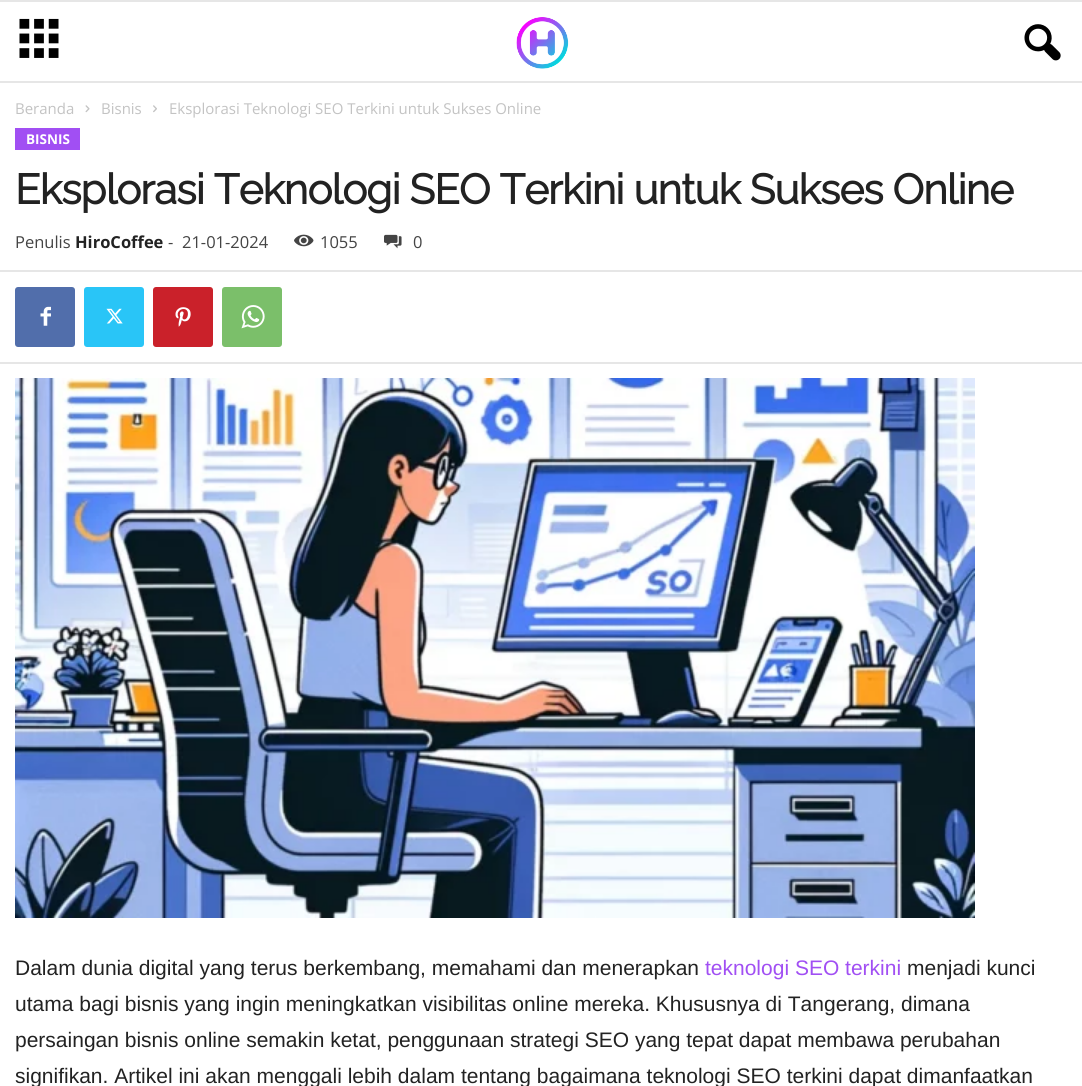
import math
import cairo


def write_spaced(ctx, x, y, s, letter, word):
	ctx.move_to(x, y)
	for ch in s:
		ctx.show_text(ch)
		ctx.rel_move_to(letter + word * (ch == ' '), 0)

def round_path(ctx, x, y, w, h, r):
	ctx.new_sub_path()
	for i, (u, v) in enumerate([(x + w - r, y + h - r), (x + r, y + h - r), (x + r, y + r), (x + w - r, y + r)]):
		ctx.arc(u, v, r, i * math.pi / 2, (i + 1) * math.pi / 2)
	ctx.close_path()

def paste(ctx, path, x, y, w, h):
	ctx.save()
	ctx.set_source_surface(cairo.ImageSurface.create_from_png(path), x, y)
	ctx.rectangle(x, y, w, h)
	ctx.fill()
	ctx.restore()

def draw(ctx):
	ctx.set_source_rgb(1, 1, 1)
	ctx.paint()
	ctx.set_source_rgb(0.902, 0.902, 0.902)
	ctx.rectangle(0, 0, 1082, 2)
	ctx.fill()
	ctx.rectangle(0, 81, 1082, 2)
	ctx.fill()
	paste(ctx, 'media/1.png', 19, 18, 40, 40)
	paste(ctx, 'media/2.png', 516, 17, 53, 52)
	paste(ctx, 'media/3.png', 1024, 24, 37, 37)
	ctx.select_font_face('Open Sans')
	ctx.set_font_size(15)
	ctx.set_source_rgb(0.765, 0.765, 0.765)
	ctx.move_to(15, 114)
	ctx.show_text('Beranda')
	paste(ctx, 'media/4.png', 85, 105, 5, 8)
	ctx.move_to(101, 114)
	ctx.show_text('Bisnis')
	paste(ctx, 'media/5.png', 153, 105, 4, 8)
	ctx.move_to(169, 114)
	ctx.show_text('Eksplorasi Teknologi SEO Terkini untuk Sukses Online')
	ctx.set_source_rgb(0.631, 0.31, 0.953)
	ctx.rectangle(15, 128, 65, 22)
	ctx.fill()
	ctx.select_font_face('Open Sans', cairo.FONT_SLANT_NORMAL, cairo.FONT_WEIGHT_BOLD)
	ctx.set_font_size(13.5)
	ctx.set_source_rgb(1, 1, 1)
	ctx.move_to(26, 144)
	ctx.show_text('BISNIS')
	ctx.select_font_face('Raleway', cairo.FONT_SLANT_NORMAL, cairo.FONT_WEIGHT_BOLD)
	ctx.set_font_size(42)
	ctx.set_source_rgb(0.133, 0.133, 0.133)
	write_spaced(ctx, 15, 204, 'Eksplorasi Teknologi SEO Terkini untuk Sukses Online', -0.85, 0)
	ctx.select_font_face('Open Sans')
	ctx.set_font_size(16.5)
	ctx.set_source_rgb(0.267, 0.267, 0.267)
	ctx.move_to(15, 248)
	ctx.show_text('Penulis')
	ctx.select_font_face('Open Sans', cairo.FONT_SLANT_NORMAL, cairo.FONT_WEIGHT_BOLD)
	ctx.set_source_rgb(0.133, 0.133, 0.133)
	ctx.move_to(75, 248)
	ctx.show_text('HiroCoffee')
	ctx.select_font_face('Open Sans')
	ctx.set_source_rgb(0.267, 0.267, 0.267)
	ctx.move_to(168, 248)
	ctx.show_text('-')
	ctx.move_to(182, 248)
	ctx.show_text('21-01-2024')
	paste(ctx, 'media/6.png', 294, 234, 20, 13)
	ctx.move_to(320, 248)
	ctx.show_text('1055')
	paste(ctx, 'media/7.png', 384, 234, 18, 15)
	ctx.move_to(413, 248)
	ctx.show_text('0')
	ctx.set_source_rgb(0.902, 0.902, 0.902)
	ctx.rectangle(0, 270, 1082, 2)
	ctx.fill()
	ctx.set_source_rgb(0.318, 0.431, 0.671)
	round_path(ctx, 15, 287, 60, 60, 3)
	ctx.fill()
	paste(ctx, 'media/8.png', 40, 306, 11, 20)
	ctx.set_source_rgb(0.161, 0.773, 0.965)
	round_path(ctx, 84, 287, 60, 60, 3)
	ctx.fill()
	paste(ctx, 'media/9.png', 106, 308, 17, 16)
	ctx.set_source_rgb(0.792, 0.129, 0.165)
	round_path(ctx, 153, 287, 60, 60, 3)
	ctx.fill()
	paste(ctx, 'media/10.png', 175, 307, 16, 20)
	ctx.set_source_rgb(0.482, 0.749, 0.416)
	round_path(ctx, 222, 287, 60, 60, 3)
	ctx.fill()
	paste(ctx, 'media/11.png', 241, 305, 24, 24)
	ctx.set_source_rgb(0.902, 0.902, 0.902)
	ctx.rectangle(0, 362, 1082, 2)
	ctx.fill()
	paste(ctx, 'media/12.png', 15, 378, 960, 540)
	ctx.select_font_face('Liberation Sans')
	ctx.set_font_size(21)
	ctx.set_source_rgb(0.133, 0.133, 0.133)
	ctx.move_to(15, 975)
	ctx.show_text('Dalam dunia digital yang terus berkembang, memahami dan menerapkan')
	ctx.set_source_rgb(0.631, 0.31, 0.953)
	ctx.move_to(705, 975)
	ctx.show_text('teknologi SEO terkini')
	ctx.set_source_rgb(0.133, 0.133, 0.133)
	for x, y, s in [
		(907, 975, 'menjadi kunci'),
		(15, 1011, 'utama bagi bisnis yang ingin meningkatkan visibilitas online mereka. Khususnya di Tangerang, dimana'),
		(15, 1047, 'persaingan bisnis online semakin ketat, penggunaan strategi SEO yang tepat dapat membawa perubahan'),
		(15, 1083, 'signifikan. Artikel ini akan menggali lebih dalam tentang bagaimana teknologi SEO terkini dapat dimanfaatkan'),
	]:
		ctx.move_to(x, y)
		ctx.show_text(s)


surface = cairo.ImageSurface(cairo.FORMAT_RGB24, 1082, 1086)
ctx = cairo.Context(surface)
options = cairo.FontOptions()
options.set_hint_metrics(cairo.HINT_METRICS_OFF)
options.set_hint_style(cairo.HINT_STYLE_NONE)
ctx.set_font_options(options)
ctx.set_miter_limit(4)
draw(ctx)
surface.write_to_png('image.png')
